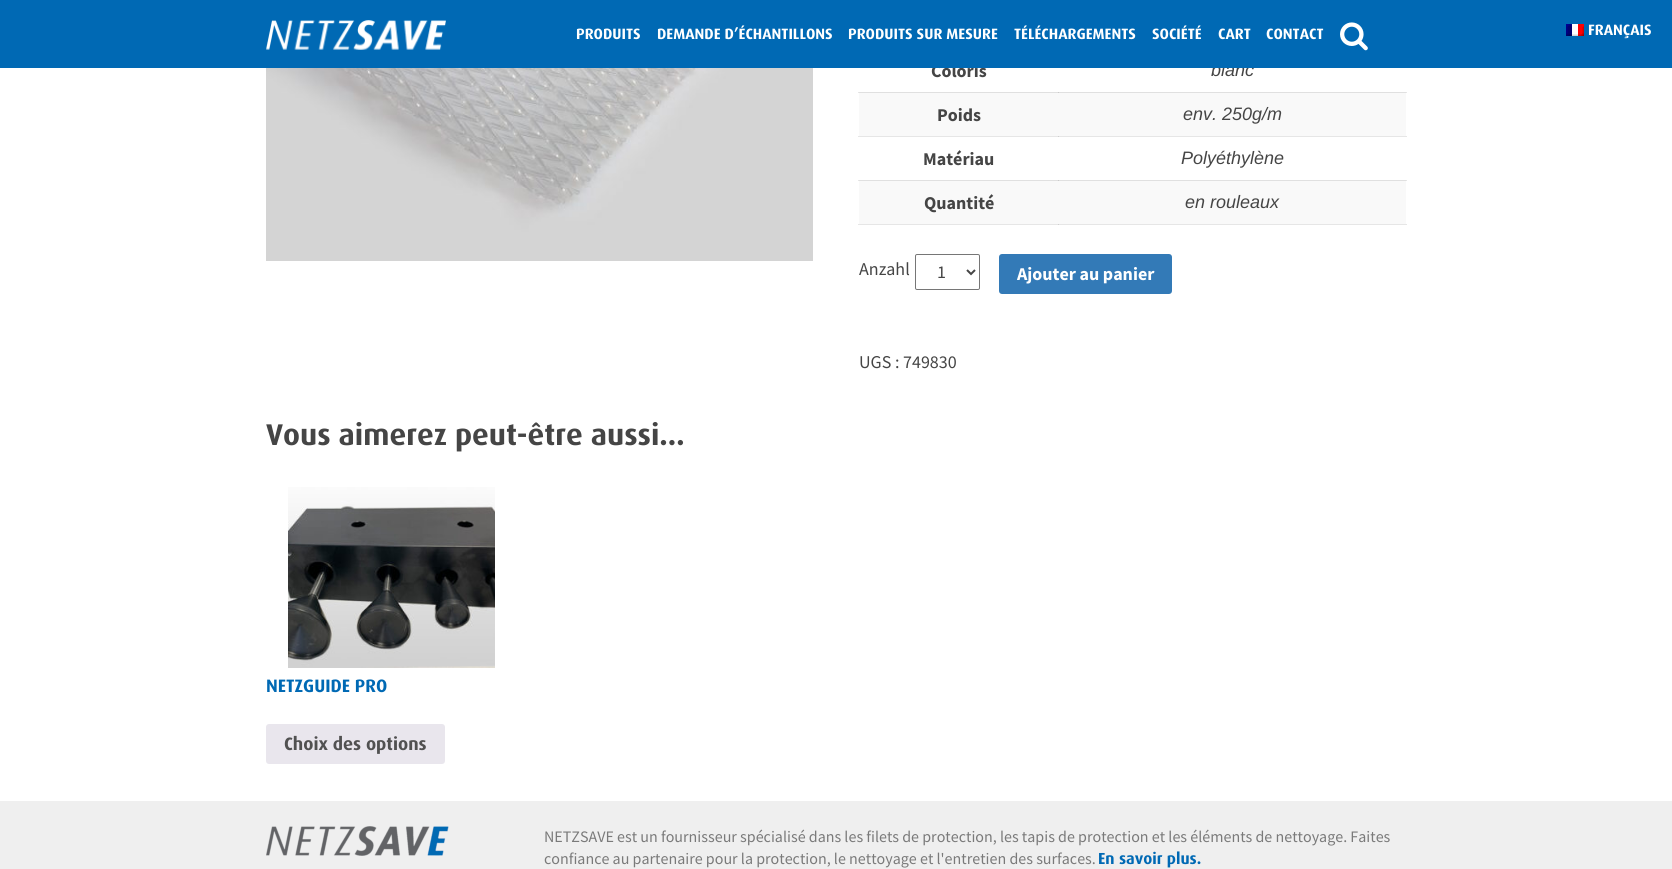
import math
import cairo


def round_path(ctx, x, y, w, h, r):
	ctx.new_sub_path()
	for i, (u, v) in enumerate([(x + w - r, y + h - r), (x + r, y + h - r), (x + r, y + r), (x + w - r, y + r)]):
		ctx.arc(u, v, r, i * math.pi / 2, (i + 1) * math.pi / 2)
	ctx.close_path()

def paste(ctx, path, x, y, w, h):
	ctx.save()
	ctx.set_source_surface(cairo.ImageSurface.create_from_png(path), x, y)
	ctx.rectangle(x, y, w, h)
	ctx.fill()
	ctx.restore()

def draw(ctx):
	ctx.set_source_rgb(1, 1, 1)
	ctx.paint()
	ctx.set_source_rgb(0.902, 0.902, 0.902)
	ctx.rectangle(858, 92, 1, 1)
	ctx.rectangle(1406, 92, 1, 1)
	ctx.rectangle(858, 136, 549, 1)
	ctx.rectangle(858, 180, 1, 1)
	ctx.rectangle(1406, 180, 1, 1)
	ctx.rectangle(858, 224, 549, 1)
	ctx.fill()
	ctx.select_font_face('Source Sans Pro', cairo.FONT_SLANT_NORMAL, cairo.FONT_WEIGHT_BOLD)
	ctx.set_font_size(18)
	ctx.set_source_rgb(0.271, 0.271, 0.271)
	ctx.move_to(931, 77)
	ctx.show_text('Coloris')
	ctx.select_font_face('Liberation Sans', cairo.FONT_SLANT_ITALIC)
	ctx.move_to(1211, 76)
	ctx.show_text('blanc')
	ctx.set_source_rgb(0, 0.412, 0.706)
	ctx.rectangle(0, 0, 1672, 68)
	ctx.fill()
	paste(ctx, 'media/1.png', 266, 20, 180, 30)
	ctx.select_font_face('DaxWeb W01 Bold', cairo.FONT_SLANT_NORMAL, cairo.FONT_WEIGHT_BOLD)
	ctx.set_font_size(15)
	ctx.set_source_rgb(1, 1, 1)
	for x, y, s in [
		(576, 39, 'PRODUITS'),
		(657, 39, 'DEMANDE D’ÉCHANTILLONS'),
		(848, 39, 'PRODUITS SUR MESURE'),
		(1014, 39, 'TÉLÉCHARGEMENTS'),
		(1152, 39, 'SOCIÉTÉ'),
		(1218, 39, 'CART'),
		(1266, 39, 'CONTACT'),
	]:
		ctx.move_to(x, y)
		ctx.show_text(s)
	paste(ctx, 'media/2.png', 1340, 22, 28, 29)
	paste(ctx, 'media/3.png', 1566, 24, 18, 12)
	ctx.move_to(1588, 35)
	ctx.show_text('FRANÇAIS')
	paste(ctx, 'media/4.png', 266, 68, 547, 193)
	ctx.set_source_rgb(0.976, 0.976, 0.976)
	ctx.rectangle(859, 93, 547, 43)
	ctx.fill()
	ctx.set_source_rgb(0.878, 0.878, 0.878)
	ctx.rectangle(859, 92, 547, 1)
	ctx.fill()
	ctx.set_source_rgb(0.792, 0.792, 0.792)
	ctx.rectangle(1058, 92, 1, 1)
	ctx.fill()
	ctx.select_font_face('Source Sans Pro', cairo.FONT_SLANT_NORMAL, cairo.FONT_WEIGHT_BOLD)
	ctx.set_font_size(18)
	ctx.set_source_rgb(0.271, 0.271, 0.271)
	ctx.move_to(937, 121)
	ctx.show_text('Poids')
	ctx.set_source_rgb(0.812, 0.812, 0.812)
	ctx.rectangle(1058, 136, 1, 1)
	ctx.fill()
	ctx.select_font_face('Liberation Sans', cairo.FONT_SLANT_ITALIC)
	ctx.set_source_rgb(0.271, 0.271, 0.271)
	ctx.move_to(1183, 120)
	ctx.show_text('env. 250g/m')
	ctx.select_font_face('Source Sans Pro', cairo.FONT_SLANT_NORMAL, cairo.FONT_WEIGHT_BOLD)
	ctx.move_to(923, 165)
	ctx.show_text('Matériau')
	ctx.select_font_face('Liberation Sans', cairo.FONT_SLANT_ITALIC)
	ctx.move_to(1181, 164)
	ctx.show_text('Polyéthylène')
	ctx.set_source_rgb(0.976, 0.976, 0.976)
	ctx.rectangle(859, 181, 547, 43)
	ctx.fill()
	ctx.set_source_rgb(0.878, 0.878, 0.878)
	ctx.rectangle(859, 180, 547, 1)
	ctx.fill()
	ctx.set_source_rgb(0.792, 0.792, 0.792)
	ctx.rectangle(1058, 180, 1, 1)
	ctx.fill()
	ctx.select_font_face('Source Sans Pro', cairo.FONT_SLANT_NORMAL, cairo.FONT_WEIGHT_BOLD)
	ctx.set_source_rgb(0.271, 0.271, 0.271)
	ctx.move_to(924, 209)
	ctx.show_text('Quantité')
	ctx.set_source_rgb(0.812, 0.812, 0.812)
	ctx.rectangle(1058, 224, 1, 1)
	ctx.fill()
	ctx.select_font_face('Liberation Sans', cairo.FONT_SLANT_ITALIC)
	ctx.set_source_rgb(0.271, 0.271, 0.271)
	ctx.move_to(1185, 208)
	ctx.show_text('en rouleaux')
	ctx.select_font_face('Source Sans Pro')
	ctx.move_to(859, 275)
	ctx.show_text('Anzahl')
	round_path(ctx, 915.5, 254.5, 64, 35, 1.5)
	ctx.set_source_rgb(0.463, 0.463, 0.463)
	ctx.set_line_width(1)
	ctx.stroke()
	ctx.new_path()
	ctx.move_to(967, 270)
	ctx.line_to(971, 274)
	ctx.line_to(975, 270)
	ctx.set_source_rgb(0.271, 0.271, 0.271)
	ctx.set_line_width(2)
	ctx.stroke()
	ctx.move_to(937, 278)
	ctx.show_text('1')
	ctx.set_source_rgb(0.2, 0.478, 0.718)
	round_path(ctx, 999, 254, 173, 40, 3)
	ctx.fill()
	ctx.select_font_face('Source Sans Pro', cairo.FONT_SLANT_NORMAL, cairo.FONT_WEIGHT_BOLD)
	ctx.set_source_rgb(1, 1, 1)
	ctx.move_to(1017, 280)
	ctx.show_text('Ajouter au panier')
	ctx.select_font_face('Source Sans Pro')
	ctx.set_source_rgb(0.271, 0.271, 0.271)
	ctx.move_to(859, 368)
	ctx.show_text('UGS : 749830')
	ctx.select_font_face('DaxWeb W01 Bold', cairo.FONT_SLANT_NORMAL, cairo.FONT_WEIGHT_BOLD)
	ctx.set_font_size(30)
	ctx.move_to(266, 445)
	ctx.show_text('Vous aimerez peut-être aussi…')
	paste(ctx, 'media/5.png', 288, 487, 207, 181)
	ctx.set_font_size(18)
	ctx.set_source_rgb(0, 0.412, 0.706)
	ctx.move_to(266, 692)
	ctx.show_text('NETZGUIDE PRO')
	ctx.set_source_rgb(0.914, 0.902, 0.929)
	round_path(ctx, 266, 724, 179, 40, 3)
	ctx.fill()
	ctx.set_source_rgb(0.318, 0.318, 0.318)
	ctx.move_to(284, 750)
	ctx.show_text('Choix des options')
	ctx.set_source_rgb(0.937, 0.937, 0.937)
	ctx.rectangle(0, 801, 1672, 68)
	ctx.fill()
	paste(ctx, 'media/6.png', 266, 826, 183, 30)
	ctx.select_font_face('Source Sans Pro')
	ctx.set_font_size(16)
	ctx.set_source_rgb(0.478, 0.478, 0.478)
	ctx.move_to(544, 842)
	ctx.show_text('NETZSAVE est un fournisseur spécialisé dans les filets de protection, les tapis de protection et les éléments de nettoyage. Faites')
	ctx.move_to(544, 864)
	ctx.show_text('confiance au partenaire pour la protection, le nettoyage et l\'entretien des surfaces.')
	ctx.select_font_face('DaxWeb W01 Bold', cairo.FONT_SLANT_NORMAL, cairo.FONT_WEIGHT_BOLD)
	ctx.set_source_rgb(0, 0.412, 0.706)
	ctx.move_to(1098, 864)
	ctx.show_text('En savoir plus.')


surface = cairo.ImageSurface(cairo.FORMAT_RGB24, 1672, 869)
ctx = cairo.Context(surface)
options = cairo.FontOptions()
options.set_hint_metrics(cairo.HINT_METRICS_OFF)
options.set_hint_style(cairo.HINT_STYLE_NONE)
ctx.set_font_options(options)
ctx.set_miter_limit(4)
draw(ctx)
surface.write_to_png('image.png')
